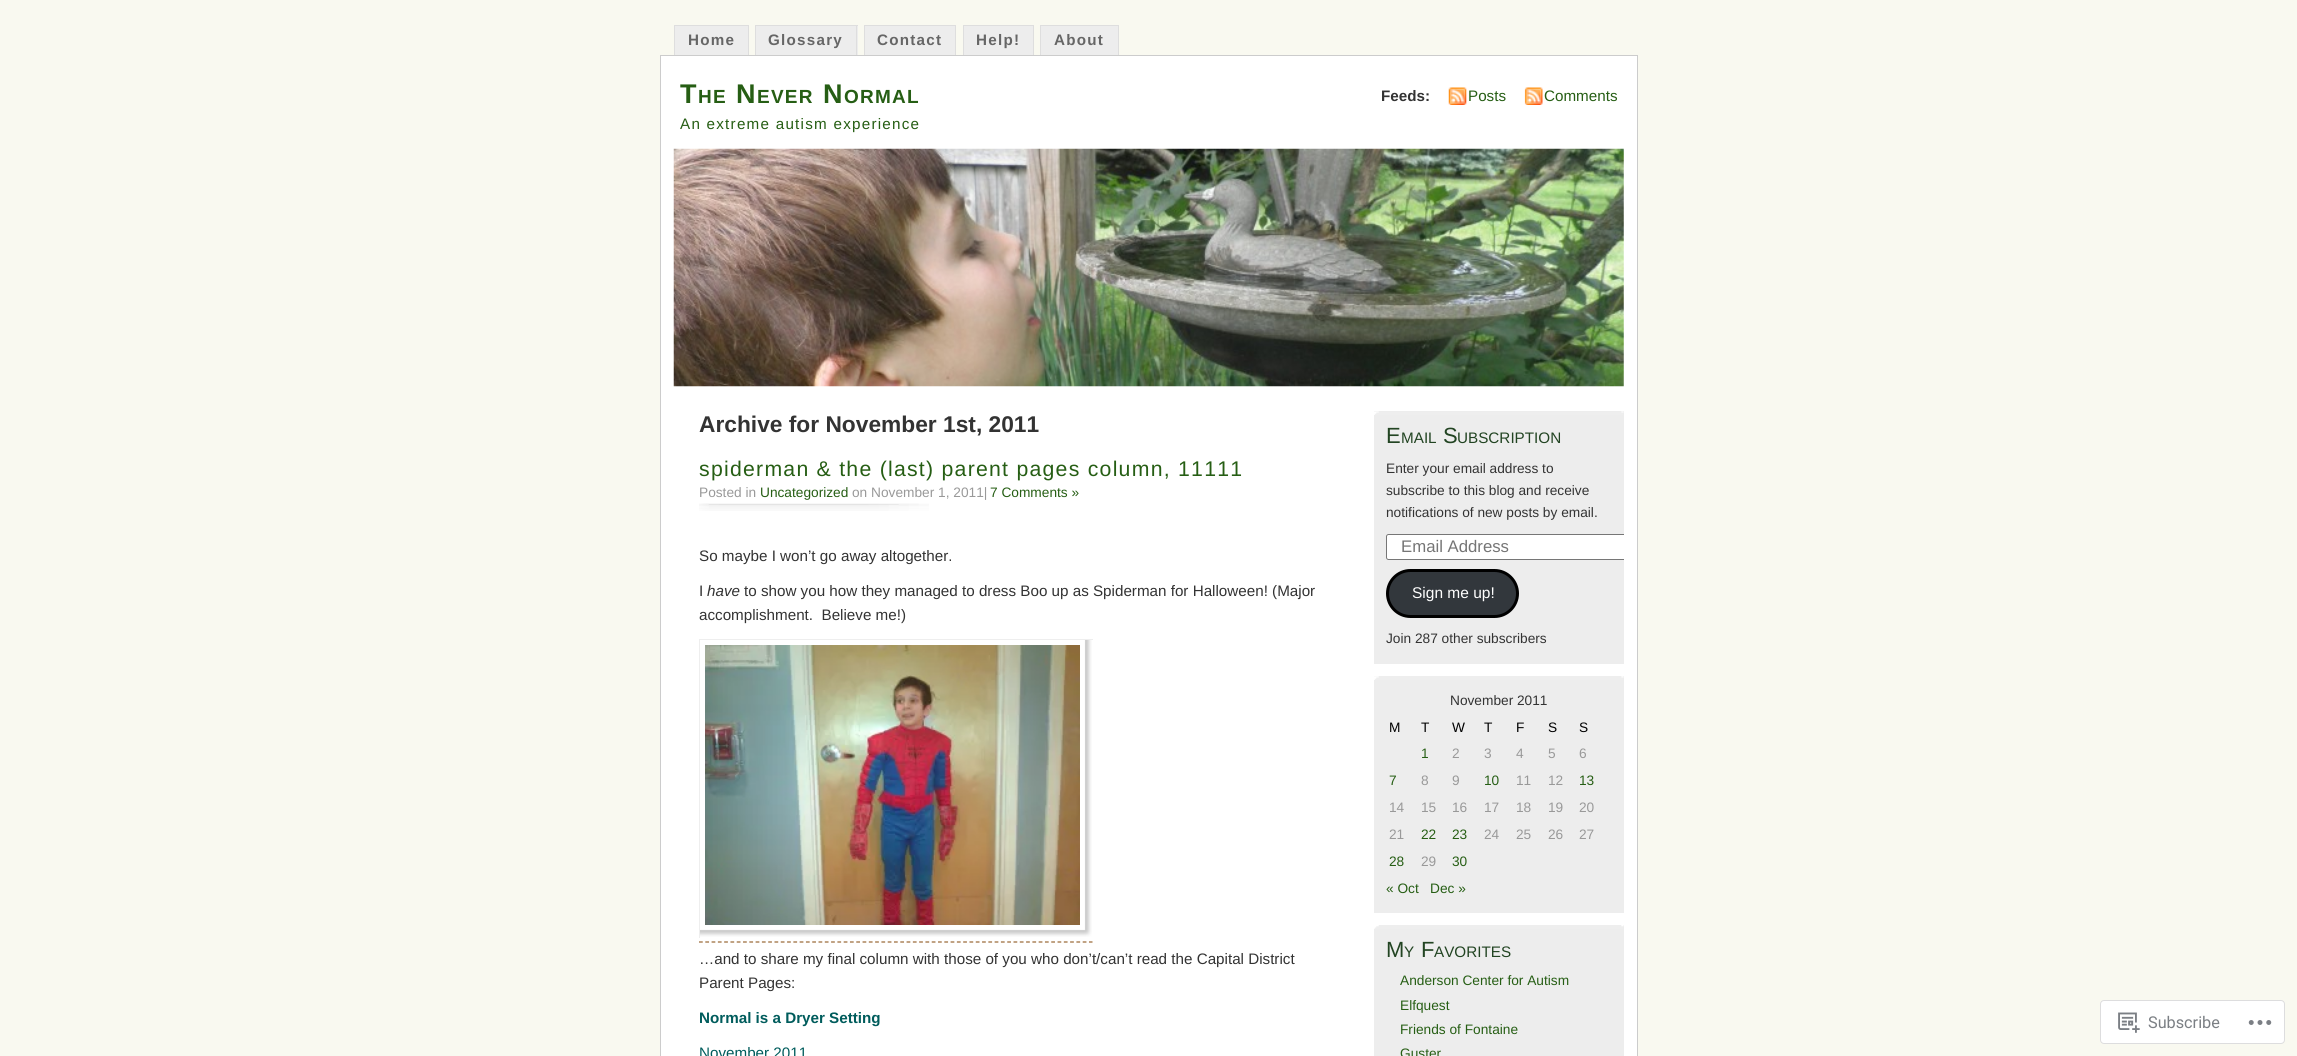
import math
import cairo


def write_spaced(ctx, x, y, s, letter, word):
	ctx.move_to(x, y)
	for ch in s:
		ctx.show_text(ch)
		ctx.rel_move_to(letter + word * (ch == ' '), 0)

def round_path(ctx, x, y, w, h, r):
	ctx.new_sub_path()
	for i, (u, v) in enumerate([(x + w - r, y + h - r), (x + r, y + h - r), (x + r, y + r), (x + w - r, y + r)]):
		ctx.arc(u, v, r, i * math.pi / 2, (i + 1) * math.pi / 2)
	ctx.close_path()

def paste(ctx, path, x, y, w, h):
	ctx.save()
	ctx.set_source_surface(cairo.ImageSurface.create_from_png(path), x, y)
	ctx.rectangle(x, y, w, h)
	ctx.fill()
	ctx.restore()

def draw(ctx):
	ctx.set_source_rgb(0.976, 0.976, 0.941)
	ctx.paint()
	ctx.set_source_rgb(0.929, 0.929, 0.929)
	ctx.rectangle(675, 26, 73, 29)
	ctx.fill()
	ctx.set_source_rgb(0.871, 0.871, 0.871)
	ctx.rectangle(674, 25, 75, 1)
	ctx.rectangle(748, 25, 1, 30)
	ctx.rectangle(674, 25, 1, 30)
	ctx.fill()
	ctx.select_font_face('Liberation Sans', cairo.FONT_SLANT_NORMAL, cairo.FONT_WEIGHT_BOLD)
	ctx.set_font_size(15.2)
	ctx.set_source_rgb(0.4, 0.4, 0.4)
	write_spaced(ctx, 688, 45, 'Home', 1.25, 0)
	ctx.set_source_rgb(0.929, 0.929, 0.929)
	ctx.rectangle(756, 26, 102, 29)
	ctx.fill()
	ctx.set_source_rgb(0.871, 0.871, 0.871)
	ctx.rectangle(755, 25, 103, 1)
	ctx.rectangle(856, 25, 1, 30)
	ctx.rectangle(755, 25, 1, 30)
	ctx.fill()
	ctx.set_source_rgb(0.4, 0.4, 0.4)
	write_spaced(ctx, 768, 45, 'Glossary', 1.25, 0)
	ctx.set_source_rgb(0.929, 0.929, 0.929)
	ctx.rectangle(865, 26, 90, 29)
	ctx.fill()
	ctx.set_source_rgb(0.871, 0.871, 0.871)
	ctx.rectangle(864, 25, 92, 1)
	ctx.rectangle(955, 25, 1, 30)
	ctx.rectangle(864, 25, 1, 30)
	ctx.fill()
	ctx.set_source_rgb(0.4, 0.4, 0.4)
	write_spaced(ctx, 877, 45, 'Contact', 1.25, 0)
	ctx.set_source_rgb(0.929, 0.929, 0.929)
	ctx.rectangle(964, 26, 69, 29)
	ctx.fill()
	ctx.set_source_rgb(0.871, 0.871, 0.871)
	ctx.rectangle(963, 25, 71, 1)
	ctx.rectangle(1033, 25, 1, 30)
	ctx.rectangle(963, 25, 1, 30)
	ctx.fill()
	ctx.set_source_rgb(0.4, 0.4, 0.4)
	write_spaced(ctx, 976, 45, 'Help!', 1.25, 0)
	ctx.set_source_rgb(0.929, 0.929, 0.929)
	ctx.rectangle(1041, 26, 77, 29)
	ctx.fill()
	ctx.set_source_rgb(0.871, 0.871, 0.871)
	ctx.rectangle(1040, 25, 79, 1)
	ctx.rectangle(1118, 25, 1, 30)
	ctx.rectangle(1040, 25, 1, 30)
	ctx.fill()
	ctx.set_source_rgb(0.4, 0.4, 0.4)
	write_spaced(ctx, 1054, 45, 'About', 1.25, 0)
	ctx.set_source_rgb(1, 1, 1)
	ctx.rectangle(660.5, 55.5, 977, 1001)
	ctx.fill_preserve()
	ctx.set_source_rgb(0.8, 0.8, 0.8)
	ctx.set_line_width(1)
	ctx.stroke()
	ctx.set_font_size(27)
	ctx.set_source_rgb(0.149, 0.369, 0.082)
	write_spaced(ctx, 680, 103, 'T', 1.25, 0)
	ctx.set_font_size(19)
	write_spaced(ctx, 698, 103, 'HE', 1.25, 0)
	ctx.set_font_size(27)
	write_spaced(ctx, 736, 103, 'N', 1.25, 0)
	ctx.set_font_size(19)
	write_spaced(ctx, 757, 103, 'EVER', 1.25, 0)
	ctx.set_font_size(27)
	write_spaced(ctx, 823, 103, 'N', 1.25, 0)
	ctx.set_font_size(19)
	write_spaced(ctx, 844, 103, 'ORMAL', 1.25, 0)
	ctx.select_font_face('Liberation Sans')
	ctx.set_font_size(15.2)
	write_spaced(ctx, 680, 129, 'An extreme autism experience', 1.25, 0)
	ctx.select_font_face('Liberation Sans', cairo.FONT_SLANT_NORMAL, cairo.FONT_WEIGHT_BOLD)
	ctx.set_source_rgb(0.2, 0.2, 0.2)
	ctx.move_to(1381, 101)
	ctx.show_text('Feeds:')
	paste(ctx, 'media/1.png', 1448, 87, 19, 18)
	ctx.select_font_face('Liberation Sans')
	ctx.set_source_rgb(0.149, 0.369, 0.082)
	ctx.move_to(1468, 101)
	ctx.show_text('Posts')
	paste(ctx, 'media/2.png', 1524, 87, 19, 18)
	ctx.move_to(1544, 101)
	ctx.show_text('Comments')
	paste(ctx, 'media/3.png', 673, 148, 951, 239)
	ctx.select_font_face('Liberation Sans', cairo.FONT_SLANT_NORMAL, cairo.FONT_WEIGHT_BOLD)
	ctx.set_font_size(22.75)
	ctx.set_source_rgb(0.2, 0.2, 0.2)
	ctx.move_to(699, 432)
	ctx.show_text('Archive for November 1st, 2011')
	ctx.select_font_face('Liberation Sans')
	ctx.set_font_size(21.25)
	ctx.set_source_rgb(0.149, 0.369, 0.082)
	write_spaced(ctx, 699, 476, 'spiderman & the (last) parent pages column, 11111', 1.25, 0)
	paste(ctx, 'media/4.png', 699, 503, 230, 8)
	ctx.set_font_size(13.7)
	ctx.set_source_rgb(0.6, 0.6, 0.6)
	ctx.move_to(699, 497)
	ctx.show_text('Posted in')
	ctx.set_source_rgb(0.149, 0.369, 0.082)
	ctx.move_to(760, 497)
	ctx.show_text('Uncategorized')
	ctx.set_source_rgb(0.6, 0.6, 0.6)
	ctx.move_to(852, 497)
	ctx.show_text('on November 1, 2011|')
	ctx.set_source_rgb(0.149, 0.369, 0.082)
	ctx.move_to(990, 497)
	ctx.show_text('7 Comments »')
	ctx.set_font_size(15.2)
	ctx.set_source_rgb(0.2, 0.2, 0.2)
	ctx.move_to(699, 561)
	ctx.show_text('So maybe I won’t go away altogether.')
	ctx.move_to(699, 596)
	ctx.show_text('I')
	ctx.select_font_face('Liberation Sans', cairo.FONT_SLANT_ITALIC)
	ctx.move_to(707, 596)
	ctx.show_text('have')
	ctx.select_font_face('Liberation Sans')
	ctx.move_to(744, 596)
	ctx.show_text('to show you how they managed to dress Boo up as Spiderman for Halloween! (Major')
	ctx.move_to(699, 620)
	ctx.show_text('accomplishment.  Believe me!)')
	ctx.set_source_rgb(0.933, 0.933, 0.933)
	ctx.rectangle(699, 639, 394, 1)
	ctx.fill()
	ctx.rectangle(699, 639, 1, 299)
	ctx.fill()
	paste(ctx, 'media/5.png', 700, 640, 392, 297)
	ctx.new_path()
	ctx.move_to(699, 942)
	ctx.line_to(1092.5, 942)
	ctx.set_source_rgb(0.6, 0.4, 0.2)
	ctx.set_line_width(1.2)
	ctx.set_dash([3.75, 2.54])
	ctx.stroke()
	ctx.set_source_rgb(0.2, 0.2, 0.2)
	ctx.move_to(699, 964)
	ctx.show_text('…and to share my final column with those of you who don’t/can’t read the Capital District')
	ctx.move_to(699, 988)
	ctx.show_text('Parent Pages:')
	ctx.select_font_face('Liberation Sans', cairo.FONT_SLANT_NORMAL, cairo.FONT_WEIGHT_BOLD)
	ctx.set_source_rgb(0, 0.361, 0.361)
	ctx.move_to(699, 1023)
	ctx.show_text('Normal is a Dryer Setting')
	ctx.select_font_face('Liberation Sans')
	ctx.move_to(699, 1058)
	ctx.show_text('November 2011')
	ctx.set_source_rgb(0.929, 0.929, 0.929)
	ctx.rectangle(1374, 411, 250, 253)
	ctx.fill()
	paste(ctx, 'media/6.png', 1374, 411, 250, 4)
	ctx.set_font_size(22)
	ctx.set_source_rgb(0.133, 0.267, 0.133)
	ctx.move_to(1386, 443)
	ctx.show_text('E')
	ctx.set_font_size(15.25)
	ctx.move_to(1401, 443)
	ctx.show_text('MAIL')
	ctx.set_font_size(22)
	ctx.move_to(1443, 443)
	ctx.show_text('S')
	ctx.set_font_size(15.25)
	ctx.move_to(1457, 443)
	ctx.show_text('UBSCRIPTION')
	ctx.set_font_size(13.7)
	ctx.set_source_rgb(0.2, 0.2, 0.2)
	for x, y, s in [
		(1386, 473, 'Enter your email address to'),
		(1386, 495, 'subscribe to this blog and receive'),
		(1386, 517, 'notifications of new posts by email.'),
	]:
		ctx.move_to(x, y)
		ctx.show_text(s)
	ctx.set_source_rgb(1, 1, 1)
	ctx.new_path()
	ctx.move_to(1388.5, 534)
	ctx.line_to(1624, 534)
	ctx.line_to(1624, 560)
	ctx.line_to(1388.5, 560)
	ctx.curve_to(1387, 560, 1386, 559, 1386, 557.5)
	ctx.line_to(1386, 536.5)
	ctx.curve_to(1386, 535, 1387, 534, 1388.5, 534)
	ctx.close_path()
	ctx.fill()
	ctx.save()
	ctx.rectangle(1374, 411, 250, 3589)
	ctx.clip()
	round_path(ctx, 1386.5, 534.5, 243, 25, 2)
	ctx.set_source_rgb(0.463, 0.463, 0.463)
	ctx.set_line_width(1)
	ctx.set_dash([])
	ctx.stroke()
	ctx.restore()
	ctx.set_font_size(16.75)
	ctx.set_source_rgb(0.459, 0.459, 0.459)
	ctx.move_to(1401, 552)
	ctx.show_text('Email Address')
	ctx.set_source_rgb(0.196, 0.216, 0.235)
	round_path(ctx, 1387.5, 570.5, 130, 46, 23)
	ctx.fill_preserve()
	ctx.set_source_rgb(0, 0, 0)
	ctx.set_line_width(3)
	ctx.set_dash([])
	ctx.stroke()
	ctx.set_font_size(15.5)
	ctx.set_source_rgb(1, 1, 1)
	ctx.move_to(1412, 598)
	ctx.show_text('Sign me up!')
	ctx.set_font_size(13.7)
	ctx.set_source_rgb(0.2, 0.2, 0.2)
	ctx.move_to(1386, 643)
	ctx.show_text('Join 287 other subscribers')
	ctx.set_source_rgb(0.929, 0.929, 0.929)
	ctx.rectangle(1374, 676, 250, 237)
	ctx.fill()
	paste(ctx, 'media/7.png', 1374, 676, 250, 4)
	ctx.set_source_rgb(0.2, 0.2, 0.2)
	ctx.move_to(1450, 705)
	ctx.show_text('November 2011')
	ctx.set_source_rgb(0, 0, 0)
	for x, y, s in [
		(1389, 732, 'M'),
		(1421, 732, 'T'),
		(1452, 732, 'W'),
		(1484, 732, 'T'),
		(1516, 732, 'F'),
		(1548, 732, 'S'),
		(1579, 732, 'S'),
	]:
		ctx.move_to(x, y)
		ctx.show_text(s)
	ctx.set_source_rgb(0.149, 0.369, 0.082)
	ctx.move_to(1421, 758)
	ctx.show_text('1')
	ctx.set_source_rgb(0.6, 0.6, 0.6)
	for x, y, s in [
		(1452, 758, '2'),
		(1484, 758, '3'),
		(1516, 758, '4'),
		(1548, 758, '5'),
		(1579, 758, '6'),
	]:
		ctx.move_to(x, y)
		ctx.show_text(s)
	ctx.set_source_rgb(0.149, 0.369, 0.082)
	ctx.move_to(1389, 785)
	ctx.show_text('7')
	ctx.set_source_rgb(0.6, 0.6, 0.6)
	ctx.move_to(1421, 785)
	ctx.show_text('8')
	ctx.move_to(1452, 785)
	ctx.show_text('9')
	ctx.set_source_rgb(0.149, 0.369, 0.082)
	ctx.move_to(1484, 785)
	ctx.show_text('10')
	ctx.set_source_rgb(0.6, 0.6, 0.6)
	ctx.move_to(1516, 785)
	ctx.show_text('11')
	ctx.move_to(1548, 785)
	ctx.show_text('12')
	ctx.set_source_rgb(0.149, 0.369, 0.082)
	ctx.move_to(1579, 785)
	ctx.show_text('13')
	ctx.set_source_rgb(0.6, 0.6, 0.6)
	for x, y, s in [
		(1389, 812, '14'),
		(1421, 812, '15'),
		(1452, 812, '16'),
		(1484, 812, '17'),
		(1516, 812, '18'),
		(1548, 812, '19'),
		(1579, 812, '20'),
		(1389, 839, '21'),
	]:
		ctx.move_to(x, y)
		ctx.show_text(s)
	ctx.set_source_rgb(0.149, 0.369, 0.082)
	ctx.move_to(1421, 839)
	ctx.show_text('22')
	ctx.move_to(1452, 839)
	ctx.show_text('23')
	ctx.set_source_rgb(0.6, 0.6, 0.6)
	for x, y, s in [
		(1484, 839, '24'),
		(1516, 839, '25'),
		(1548, 839, '26'),
		(1579, 839, '27'),
	]:
		ctx.move_to(x, y)
		ctx.show_text(s)
	ctx.set_source_rgb(0.149, 0.369, 0.082)
	ctx.move_to(1389, 866)
	ctx.show_text('28')
	ctx.set_source_rgb(0.6, 0.6, 0.6)
	ctx.move_to(1421, 866)
	ctx.show_text('29')
	ctx.set_source_rgb(0.149, 0.369, 0.082)
	for x, y, s in [
		(1452, 866, '30'),
		(1386, 893, '« Oct'),
		(1430, 893, 'Dec »'),
	]:
		ctx.move_to(x, y)
		ctx.show_text(s)
	ctx.set_source_rgb(0.929, 0.929, 0.929)
	ctx.rectangle(1374, 925, 250, 131)
	ctx.fill()
	paste(ctx, 'media/8.png', 1374, 925, 250, 4)
	ctx.set_font_size(22)
	ctx.set_source_rgb(0.133, 0.267, 0.133)
	ctx.move_to(1386, 957)
	ctx.show_text('M')
	ctx.set_font_size(15.25)
	ctx.move_to(1404, 957)
	ctx.show_text('Y')
	ctx.set_font_size(22)
	ctx.move_to(1421, 957)
	ctx.show_text('F')
	ctx.set_font_size(15.25)
	ctx.move_to(1434, 957)
	ctx.show_text('AVORITES')
	ctx.set_font_size(13.7)
	ctx.set_source_rgb(0.149, 0.369, 0.082)
	for x, y, s in [
		(1400, 985, 'Anderson Center for Autism'),
		(1400, 1010, 'Elfquest'),
		(1400, 1034, 'Friends of Fontaine'),
		(1400, 1058, 'Guster'),
	]:
		ctx.move_to(x, y)
		ctx.show_text(s)
	ctx.set_source_rgb(1, 1, 1)
	round_path(ctx, 2100.5, 1000.5, 184, 43, 3.5)
	ctx.fill_preserve()
	ctx.set_source_rgb(0.867, 0.867, 0.871)
	ctx.set_line_width(1)
	ctx.stroke()
	paste(ctx, 'media/9.png', 2118, 1012, 22, 21)
	ctx.select_font_face('Roboto')
	ctx.set_font_size(16.25)
	ctx.set_source_rgb(0.482, 0.498, 0.518)
	ctx.move_to(2148, 1028)
	ctx.show_text('Subscribe')
	paste(ctx, 'media/10.png', 2248, 1020, 24, 5)


surface = cairo.ImageSurface(cairo.FORMAT_RGB24, 2297, 1056)
ctx = cairo.Context(surface)
options = cairo.FontOptions()
options.set_hint_metrics(cairo.HINT_METRICS_OFF)
options.set_hint_style(cairo.HINT_STYLE_NONE)
ctx.set_font_options(options)
ctx.set_miter_limit(4)
draw(ctx)
surface.write_to_png('image.png')
